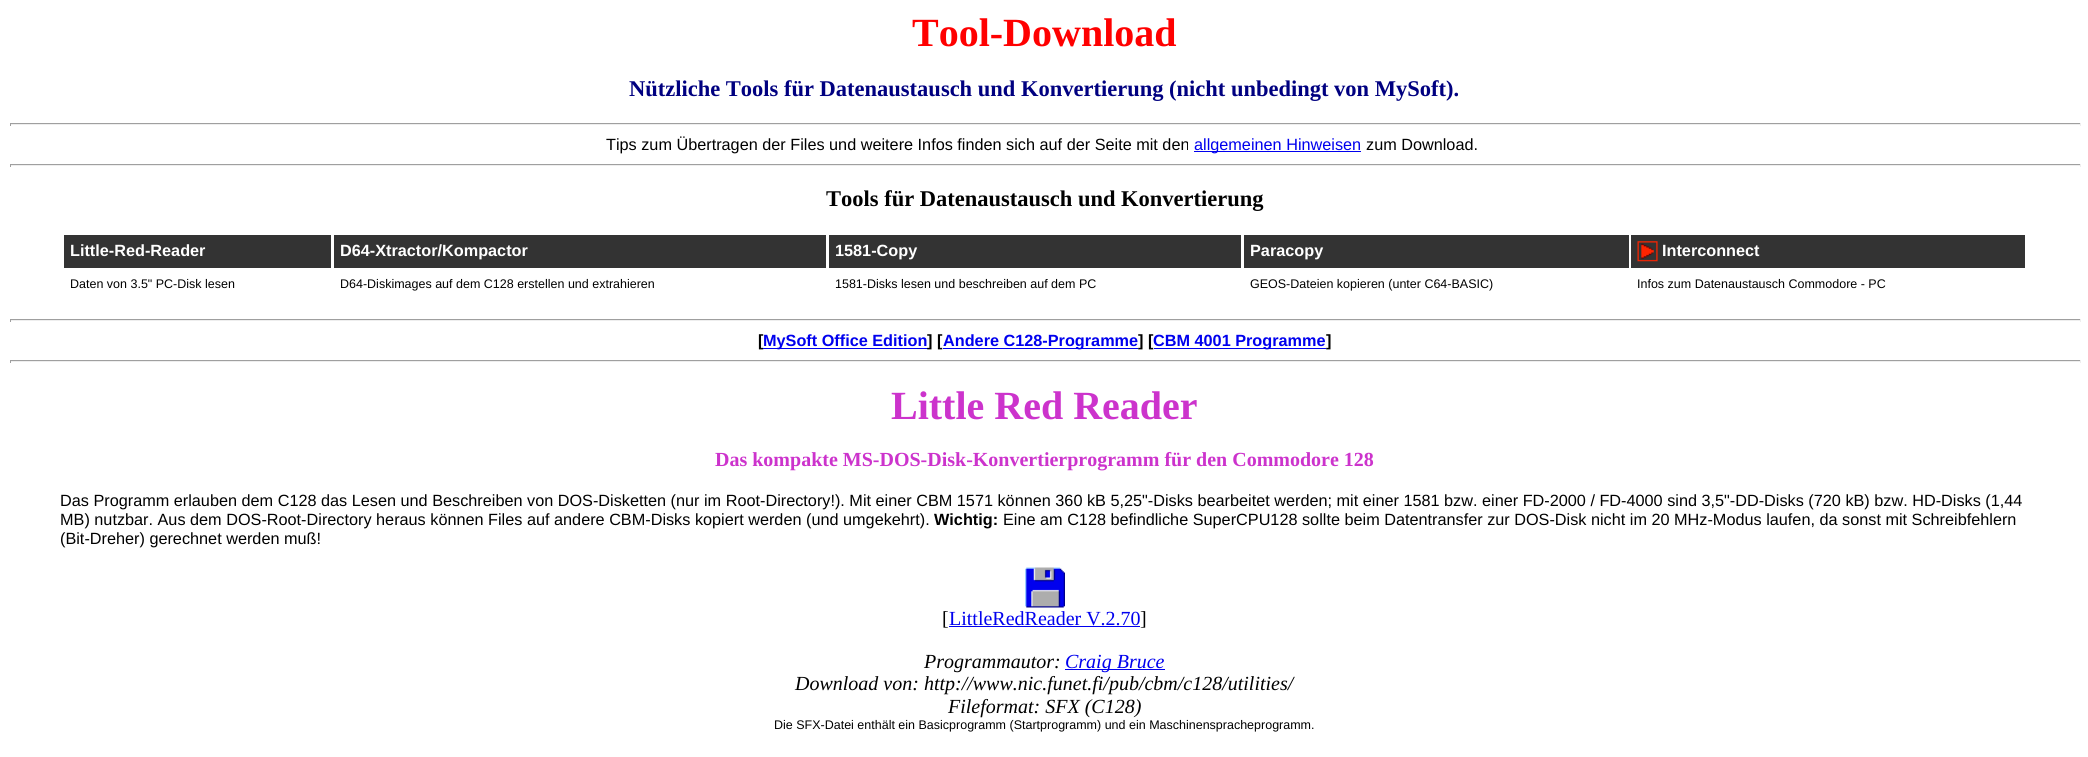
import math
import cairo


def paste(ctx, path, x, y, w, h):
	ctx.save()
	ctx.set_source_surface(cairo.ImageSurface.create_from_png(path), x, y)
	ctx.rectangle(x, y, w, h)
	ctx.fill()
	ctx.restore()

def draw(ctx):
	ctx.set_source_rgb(1, 1, 1)
	ctx.paint()
	ctx.select_font_face('Liberation Serif', cairo.FONT_SLANT_NORMAL, cairo.FONT_WEIGHT_BOLD)
	ctx.set_font_size(40)
	ctx.set_source_rgb(1, 0, 0)
	ctx.move_to(912, 46)
	ctx.show_text('Tool-Download')
	ctx.set_font_size(22.5)
	ctx.set_source_rgb(0, 0, 0.502)
	ctx.move_to(629, 96)
	ctx.show_text('Nützliche Tools für Datenaustausch und Konvertierung (nicht unbedingt von MySoft).')
	ctx.set_source_rgb(0.624, 0.624, 0.624)
	ctx.rectangle(10, 123, 2071, 1)
	ctx.fill()
	ctx.set_source_rgb(0.933, 0.933, 0.933)
	ctx.rectangle(2080, 123, 1, 3)
	ctx.rectangle(10, 124, 2071, 1)
	ctx.fill()
	ctx.set_source_rgb(0.624, 0.624, 0.624)
	ctx.rectangle(10, 123, 1, 3)
	ctx.fill()
	ctx.select_font_face('Liberation Sans')
	ctx.set_font_size(16.25)
	ctx.set_source_rgb(0, 0, 0)
	ctx.move_to(606, 150)
	ctx.show_text('Tips zum Übertragen der Files und weitere Infos finden sich auf der Seite mit den')
	ctx.set_source_rgb(0, 0, 0.933)
	ctx.rectangle(1194, 151, 167, 1)
	ctx.fill()
	ctx.move_to(1194, 150)
	ctx.show_text('allgemeinen Hinweisen')
	ctx.set_source_rgb(0, 0, 0)
	ctx.move_to(1366, 150)
	ctx.show_text('zum Download.')
	ctx.set_source_rgb(0.624, 0.624, 0.624)
	ctx.rectangle(10, 164, 2071, 1)
	ctx.fill()
	ctx.set_source_rgb(0.933, 0.933, 0.933)
	ctx.rectangle(2080, 164, 1, 3)
	ctx.rectangle(10, 165, 2071, 1)
	ctx.fill()
	ctx.set_source_rgb(0.624, 0.624, 0.624)
	ctx.rectangle(10, 164, 1, 3)
	ctx.fill()
	ctx.select_font_face('Liberation Serif', cairo.FONT_SLANT_NORMAL, cairo.FONT_WEIGHT_BOLD)
	ctx.set_font_size(22.5)
	ctx.set_source_rgb(0, 0, 0)
	ctx.move_to(826, 206)
	ctx.show_text('Tools für Datenaustausch und Konvertierung')
	ctx.set_source_rgb(0.2, 0.2, 0.2)
	ctx.rectangle(64, 235, 267, 33)
	ctx.fill()
	ctx.select_font_face('Liberation Sans', cairo.FONT_SLANT_NORMAL, cairo.FONT_WEIGHT_BOLD)
	ctx.set_font_size(16.25)
	ctx.set_source_rgb(1, 1, 1)
	ctx.move_to(70, 256)
	ctx.show_text('Little-Red-Reader')
	ctx.set_source_rgb(0.2, 0.2, 0.2)
	ctx.rectangle(334, 235, 492, 33)
	ctx.fill()
	ctx.set_source_rgb(1, 1, 1)
	ctx.move_to(340, 256)
	ctx.show_text('D64-Xtractor/Kompactor')
	ctx.set_source_rgb(0.2, 0.2, 0.2)
	ctx.rectangle(829, 235, 412, 33)
	ctx.fill()
	ctx.set_source_rgb(1, 1, 1)
	ctx.move_to(835, 256)
	ctx.show_text('1581-Copy')
	ctx.set_source_rgb(0.2, 0.2, 0.2)
	ctx.rectangle(1244, 235, 385, 33)
	ctx.fill()
	ctx.set_source_rgb(1, 1, 1)
	ctx.move_to(1250, 256)
	ctx.show_text('Paracopy')
	ctx.set_source_rgb(0.2, 0.2, 0.2)
	ctx.rectangle(1631, 235, 394, 33)
	ctx.fill()
	paste(ctx, 'media/1.png', 1637, 241, 21, 21)
	ctx.set_source_rgb(1, 1, 1)
	ctx.move_to(1662, 256)
	ctx.show_text('Interconnect')
	ctx.select_font_face('Liberation Sans')
	ctx.set_font_size(12.5)
	ctx.set_source_rgb(0, 0, 0)
	for x, y, s in [
		(70, 288, 'Daten von 3.5" PC-Disk lesen'),
		(340, 288, 'D64-Diskimages auf dem C128 erstellen und extrahieren'),
		(835, 288, '1581-Disks lesen und beschreiben auf dem PC'),
		(1250, 288, 'GEOS-Dateien kopieren (unter C64-BASIC)'),
		(1637, 288, 'Infos zum Datenaustausch Commodore - PC'),
	]:
		ctx.move_to(x, y)
		ctx.show_text(s)
	ctx.set_source_rgb(0.624, 0.624, 0.624)
	ctx.rectangle(10, 319, 2071, 1)
	ctx.fill()
	ctx.set_source_rgb(0.933, 0.933, 0.933)
	ctx.rectangle(2080, 319, 1, 3)
	ctx.rectangle(10, 320, 2071, 1)
	ctx.fill()
	ctx.set_source_rgb(0.624, 0.624, 0.624)
	ctx.rectangle(10, 319, 1, 3)
	ctx.fill()
	ctx.select_font_face('Liberation Sans', cairo.FONT_SLANT_NORMAL, cairo.FONT_WEIGHT_BOLD)
	ctx.set_font_size(16.25)
	ctx.set_source_rgb(0, 0, 0)
	ctx.move_to(758, 346)
	ctx.show_text('[')
	ctx.set_source_rgb(0, 0, 0.933)
	ctx.rectangle(763, 348, 165, 1)
	ctx.fill()
	ctx.move_to(763, 346)
	ctx.show_text('MySoft Office Edition')
	ctx.set_source_rgb(0, 0, 0)
	ctx.move_to(927, 346)
	ctx.show_text('] [')
	ctx.set_source_rgb(0, 0, 0.933)
	ctx.rectangle(943, 348, 195, 1)
	ctx.fill()
	ctx.move_to(943, 346)
	ctx.show_text('Andere C128-Programme')
	ctx.set_source_rgb(0, 0, 0)
	ctx.move_to(1138, 346)
	ctx.show_text('] [')
	ctx.set_source_rgb(0, 0, 0.933)
	ctx.rectangle(1154, 348, 172, 1)
	ctx.fill()
	ctx.move_to(1153, 346)
	ctx.show_text('CBM 4001 Programme')
	ctx.set_source_rgb(0, 0, 0)
	ctx.move_to(1326, 346)
	ctx.show_text(']')
	ctx.set_source_rgb(0.624, 0.624, 0.624)
	ctx.rectangle(10, 360, 2071, 1)
	ctx.fill()
	ctx.set_source_rgb(0.933, 0.933, 0.933)
	ctx.rectangle(2080, 360, 1, 3)
	ctx.rectangle(10, 361, 2071, 1)
	ctx.fill()
	ctx.set_source_rgb(0.624, 0.624, 0.624)
	ctx.rectangle(10, 360, 1, 3)
	ctx.fill()
	ctx.select_font_face('Liberation Serif', cairo.FONT_SLANT_NORMAL, cairo.FONT_WEIGHT_BOLD)
	ctx.set_font_size(40)
	ctx.set_source_rgb(0.8, 0.2, 0.8)
	ctx.move_to(891, 419)
	ctx.show_text('Little Red Reader')
	ctx.set_font_size(20)
	ctx.move_to(715, 466)
	ctx.show_text('Das kompakte MS-DOS-Disk-Konvertierprogramm für den Commodore 128')
	ctx.select_font_face('Liberation Sans')
	ctx.set_font_size(16.25)
	ctx.set_source_rgb(0, 0, 0)
	ctx.move_to(60, 506)
	ctx.show_text('Das Programm erlauben dem C128 das Lesen und Beschreiben von DOS-Disketten (nur im Root-Directory!). Mit einer CBM 1571 können 360 kB 5,25"-Disks bearbeitet werden; mit einer 1581 bzw. einer FD-2000 / FD-4000 sind 3,5"-DD-Disks (720 kB) bzw. HD-Disks (1,44')
	ctx.move_to(60, 525)
	ctx.show_text('MB) nutzbar. Aus dem DOS-Root-Directory heraus können Files auf andere CBM-Disks kopiert werden (und umgekehrt).')
	ctx.select_font_face('Liberation Sans', cairo.FONT_SLANT_NORMAL, cairo.FONT_WEIGHT_BOLD)
	ctx.move_to(934, 525)
	ctx.show_text('Wichtig:')
	ctx.select_font_face('Liberation Sans')
	ctx.move_to(1003, 525)
	ctx.show_text('Eine am C128 befindliche SuperCPU128 sollte beim Datentransfer zur DOS-Disk nicht im 20 MHz-Modus laufen, da sonst mit Schreibfehlern')
	ctx.move_to(60, 544)
	ctx.show_text('(Bit-Dreher) gerechnet werden muß!')
	paste(ctx, 'media/2.png', 1025, 567, 40, 41)
	ctx.select_font_face('Liberation Serif')
	ctx.set_font_size(20)
	ctx.move_to(942, 625)
	ctx.show_text('[')
	ctx.set_source_rgb(0, 0, 0.933)
	ctx.move_to(949, 625)
	ctx.show_text('LittleRedReader V.2.70')
	ctx.rectangle(949, 626, 191, 1)
	ctx.fill()
	ctx.set_source_rgb(0, 0, 0)
	ctx.move_to(1140, 625)
	ctx.show_text(']')
	ctx.select_font_face('Liberation Serif', cairo.FONT_SLANT_ITALIC)
	ctx.move_to(924, 668)
	ctx.show_text('Programmautor:')
	ctx.set_source_rgb(0, 0, 0.933)
	ctx.rectangle(1065, 669, 100, 1)
	ctx.fill()
	ctx.move_to(1065, 668)
	ctx.show_text('Craig Bruce')
	ctx.set_source_rgb(0, 0, 0)
	ctx.move_to(795, 690)
	ctx.show_text('Download von: http://www.nic.funet.fi/pub/cbm/c128/utilities/')
	ctx.move_to(948, 713)
	ctx.show_text('Fileformat: SFX (C128)')
	ctx.select_font_face('Liberation Sans')
	ctx.set_font_size(12.5)
	ctx.move_to(774, 729)
	ctx.show_text('Die SFX-Datei enthält ein Basicprogramm (Startprogramm) und ein Maschinenspracheprogramm.')


surface = cairo.ImageSurface(cairo.FORMAT_RGB24, 2088, 757)
ctx = cairo.Context(surface)
options = cairo.FontOptions()
options.set_hint_metrics(cairo.HINT_METRICS_OFF)
options.set_hint_style(cairo.HINT_STYLE_NONE)
ctx.set_font_options(options)
ctx.set_miter_limit(4)
draw(ctx)
surface.write_to_png('image.png')
